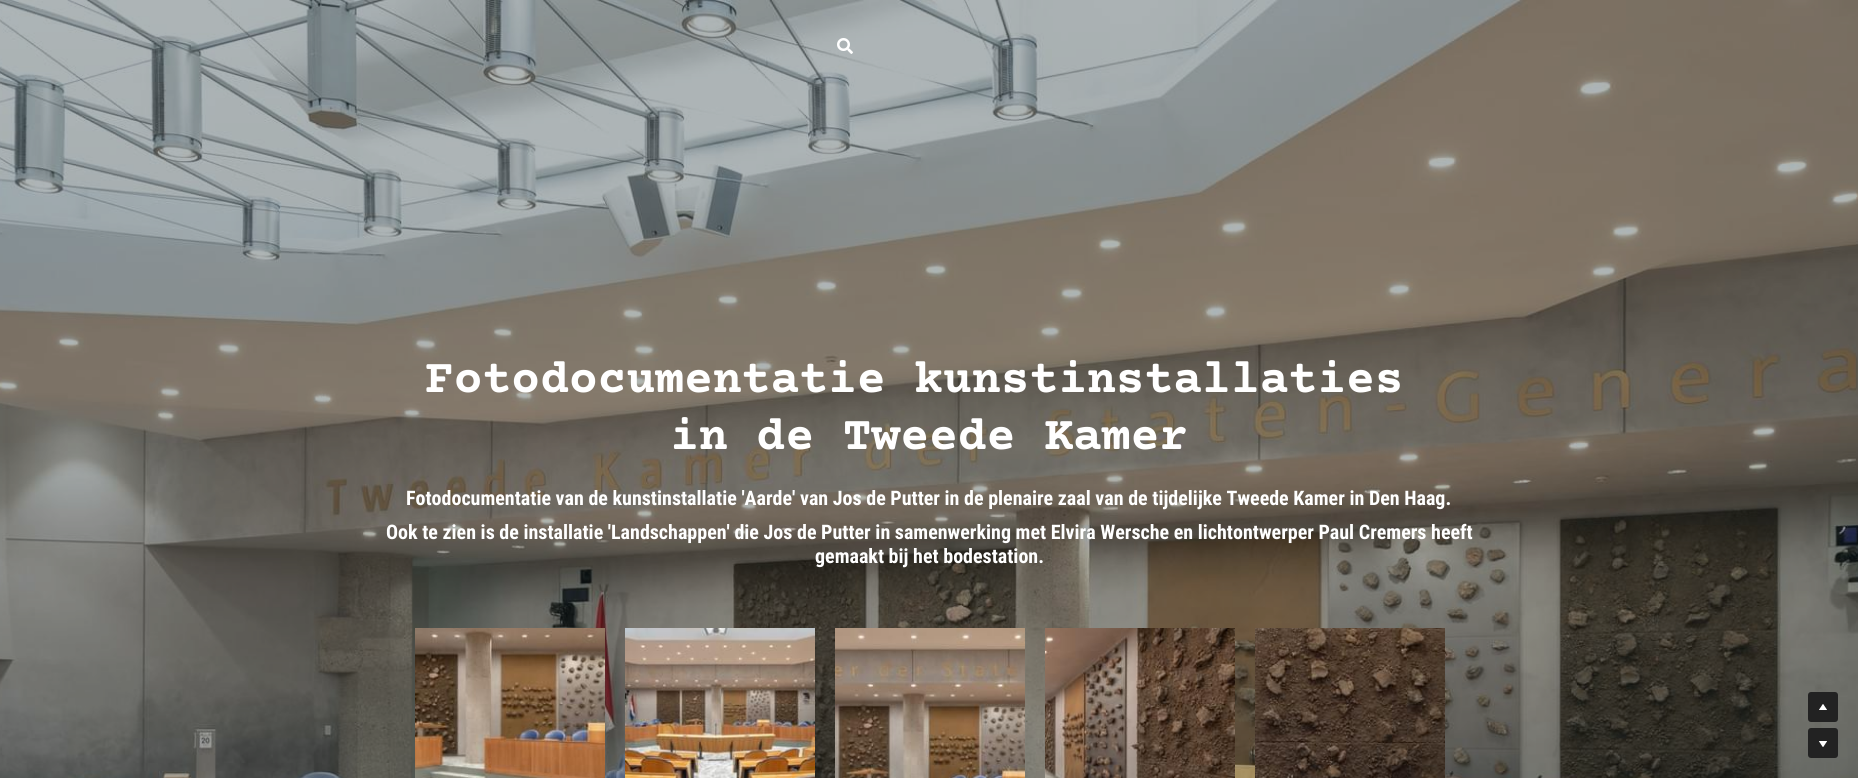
import math
import cairo


def round_path(ctx, x, y, w, h, r):
	ctx.new_sub_path()
	for i, (u, v) in enumerate([(x + w - r, y + h - r), (x + r, y + h - r), (x + r, y + r), (x + w - r, y + r)]):
		ctx.arc(u, v, r, i * math.pi / 2, (i + 1) * math.pi / 2)
	ctx.close_path()

def paste(ctx, path, x, y, w, h):
	ctx.save()
	ctx.set_source_surface(cairo.ImageSurface.create_from_png(path), x, y)
	ctx.rectangle(x, y, w, h)
	ctx.fill()
	ctx.restore()

def draw(ctx):
	ctx.set_source_rgb(1, 1, 1)
	ctx.paint()
	paste(ctx, 'media/2.png', 0, 0, 1858, 778)
	paste(ctx, 'media/1.png', 837, 38, 16, 16)
	ctx.select_font_face('Courier Prime', cairo.FONT_SLANT_NORMAL, cairo.FONT_WEIGHT_BOLD)
	ctx.set_font_size(48)
	ctx.set_source_rgb(1, 1, 1)
	ctx.move_to(425, 392)
	ctx.show_text('Fotodocumentatie kunstinstallaties')
	ctx.move_to(670, 449)
	ctx.show_text('in de Tweede Kamer')
	ctx.select_font_face('Roboto Condensed', cairo.FONT_SLANT_NORMAL, cairo.FONT_WEIGHT_BOLD)
	ctx.set_font_size(20)
	for x, y, s in [
		(406, 505, 'Fotodocumentatie van de kunstinstallatie \'Aarde\' van Jos de Putter in de plenaire zaal van de tijdelijke Tweede Kamer in Den Haag.'),
		(386, 539, 'Ook te zien is de installatie \'Landschappen\' die Jos de Putter in samenwerking met Elvira Wersche en lichtontwerper Paul Cremers heeft'),
		(815, 563, 'gemaakt bij het bodestation.'),
	]:
		ctx.move_to(x, y)
		ctx.show_text(s)
	paste(ctx, 'media/3.png', 415, 628, 190, 150)
	paste(ctx, 'media/4.png', 625, 628, 190, 150)
	paste(ctx, 'media/5.png', 835, 628, 190, 150)
	paste(ctx, 'media/6.png', 1045, 628, 190, 150)
	paste(ctx, 'media/7.png', 1255, 628, 190, 150)
	ctx.set_source_rgb(0.133, 0.133, 0.133)
	round_path(ctx, 1808, 692, 30, 30, 3)
	ctx.fill()
	paste(ctx, 'media/8.png', 1819, 704, 8, 6)
	round_path(ctx, 1808, 728, 30, 30, 3)
	ctx.fill()
	paste(ctx, 'media/9.png', 1819, 741, 8, 6)


surface = cairo.ImageSurface(cairo.FORMAT_RGB24, 1858, 778)
ctx = cairo.Context(surface)
options = cairo.FontOptions()
options.set_hint_metrics(cairo.HINT_METRICS_OFF)
options.set_hint_style(cairo.HINT_STYLE_NONE)
ctx.set_font_options(options)
ctx.set_miter_limit(4)
draw(ctx)
surface.write_to_png('image.png')
